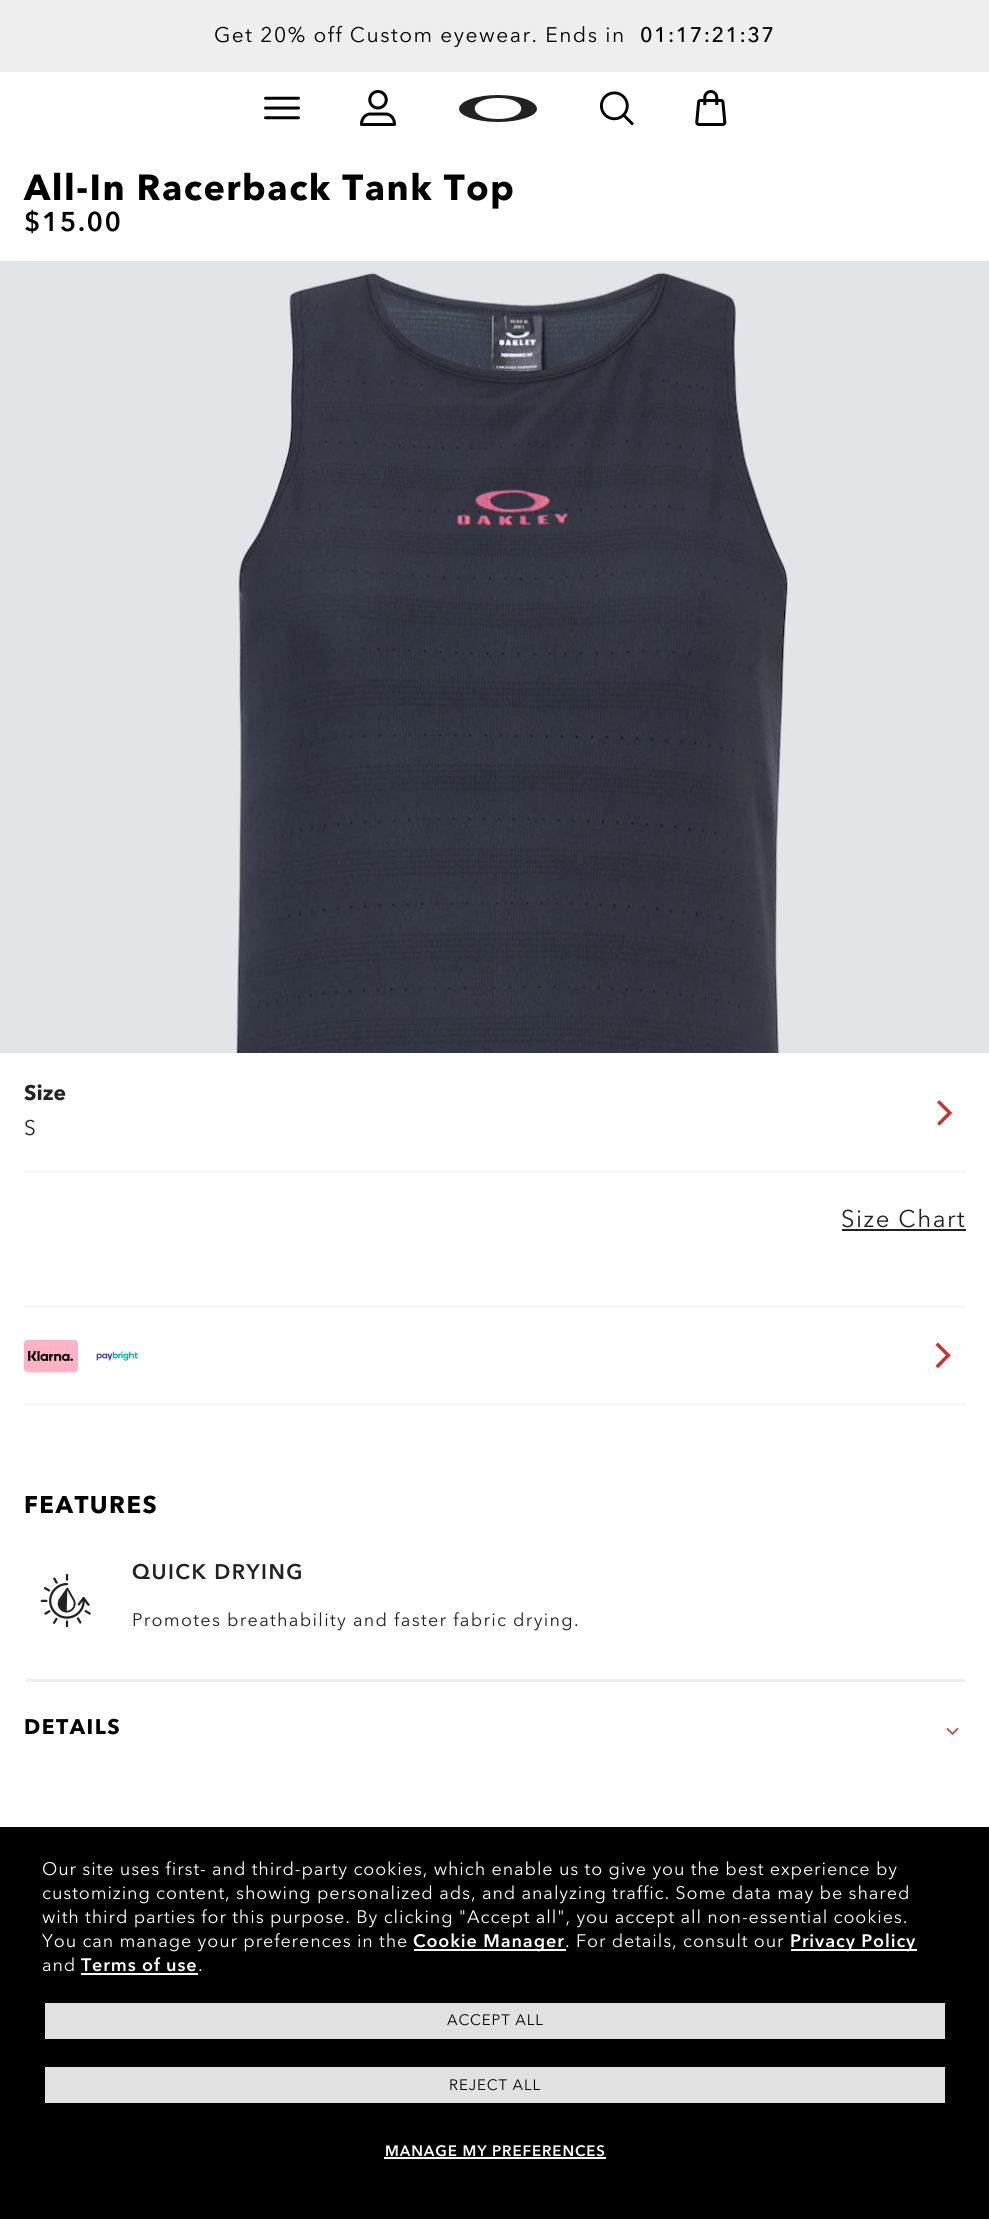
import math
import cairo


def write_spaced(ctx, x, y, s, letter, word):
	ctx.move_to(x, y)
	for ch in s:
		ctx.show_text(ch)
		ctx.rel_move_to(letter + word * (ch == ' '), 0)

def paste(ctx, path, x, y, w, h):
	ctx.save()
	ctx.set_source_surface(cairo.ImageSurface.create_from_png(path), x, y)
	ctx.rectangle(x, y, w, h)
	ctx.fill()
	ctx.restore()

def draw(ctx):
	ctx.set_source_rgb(1, 1, 1)
	ctx.paint()
	ctx.set_source_rgb(0.933, 0.933, 0.933)
	ctx.rectangle(0, 0, 989, 72)
	ctx.fill()
	ctx.select_font_face('Avenir Next')
	ctx.set_font_size(21)
	ctx.set_source_rgb(0, 0, 0)
	write_spaced(ctx, 214, 42, 'Get 20% off Custom eyewear. Ends in', 1.5, 0)
	ctx.select_font_face('Avenir Next Medium')
	write_spaced(ctx, 640, 42, '01:17:21:37', 1.5, 0)
	paste(ctx, 'media/1.png', 264, 96, 36, 24)
	paste(ctx, 'media/2.png', 360, 90, 36, 36)
	ctx.set_source_rgb(0.133, 0.133, 0.133)
	ctx.set_fill_rule(cairo.FILL_RULE_EVEN_ODD)
	ctx.new_path()
	ctx.move_to(498, 119)
	ctx.curve_to(467, 119, 467, 98, 498, 98)
	ctx.curve_to(529, 98, 529, 119, 498, 119)
	ctx.close_path()
	ctx.move_to(498, 95)
	ctx.curve_to(477, 95, 459, 101, 459, 109)
	ctx.curve_to(459, 116, 477, 122, 498, 122)
	ctx.curve_to(519, 122, 537, 116, 537, 109)
	ctx.curve_to(537, 101, 519, 95, 498, 95)
	ctx.close_path()
	ctx.fill()
	paste(ctx, 'media/3.png', 599, 91, 35, 35)
	paste(ctx, 'media/4.png', 695, 90, 32, 36)
	ctx.select_font_face('Avenir Next', cairo.FONT_SLANT_NORMAL, cairo.FONT_WEIGHT_BOLD)
	ctx.set_font_size(36)
	ctx.set_source_rgb(0, 0, 0)
	write_spaced(ctx, 24, 200, 'All-In Racerback Tank Top', 1.5, 0)
	ctx.select_font_face('Avenir Next SemiBold')
	ctx.set_font_size(27)
	write_spaced(ctx, 24, 231, '$15.00', 1.5, 0)
	paste(ctx, 'media/5.png', 0, 261, 989, 792)
	ctx.set_source_rgb(0.965, 0.965, 0.965)
	ctx.rectangle(24, 1170, 942, 3)
	ctx.fill()
	ctx.select_font_face('Avenir Next', cairo.FONT_SLANT_NORMAL, cairo.FONT_WEIGHT_BOLD)
	ctx.set_font_size(21)
	ctx.set_source_rgb(0.133, 0.133, 0.133)
	ctx.move_to(24, 1100)
	ctx.show_text('Size')
	ctx.select_font_face('Avenir Next')
	ctx.move_to(24, 1135)
	ctx.show_text('S')
	paste(ctx, 'media/6.png', 937, 1100, 15, 26)
	ctx.set_font_size(24)
	write_spaced(ctx, 841, 1227, 'Size Chart', 1.5, 0)
	ctx.rectangle(842, 1229, 124, 2)
	ctx.fill()
	ctx.set_source_rgb(0.965, 0.965, 0.965)
	ctx.rectangle(24, 1305, 942, 3)
	ctx.rectangle(24, 1403, 942, 3)
	ctx.fill()
	paste(ctx, 'media/7.png', 24, 1340, 54, 33)
	paste(ctx, 'media/8.png', 96, 1351, 42, 10)
	paste(ctx, 'media/9.png', 935, 1342, 16, 26)
	ctx.select_font_face('Avenir Next', cairo.FONT_SLANT_NORMAL, cairo.FONT_WEIGHT_BOLD)
	ctx.set_source_rgb(0, 0, 0)
	write_spaced(ctx, 24, 1513, 'FEATURES', 1.5, 0)
	ctx.select_font_face('Avenir Next SemiBold')
	ctx.set_font_size(21)
	ctx.set_source_rgb(0.133, 0.133, 0.133)
	write_spaced(ctx, 132, 1579, 'QUICK DRYING', 1.5, 0)
	paste(ctx, 'media/10.png', 40, 1574, 51, 54)
	ctx.select_font_face('Avenir Next')
	ctx.set_font_size(18)
	write_spaced(ctx, 132, 1626, 'Promotes breathability and faster fabric drying.', 1.3, 0)
	ctx.set_source_rgb(0.933, 0.933, 0.933)
	ctx.rectangle(26, 1679, 939, 3)
	ctx.fill()
	ctx.select_font_face('Avenir Next', cairo.FONT_SLANT_NORMAL, cairo.FONT_WEIGHT_BOLD)
	ctx.set_font_size(21)
	ctx.set_source_rgb(0, 0, 0)
	write_spaced(ctx, 24, 1734, 'DETAILS', 1.5, 0)
	paste(ctx, 'media/11.png', 946, 1728, 13, 7)
	ctx.rectangle(0, 1827, 989, 392)
	ctx.fill()
	ctx.select_font_face('Avenir Next')
	ctx.set_font_size(18)
	ctx.set_source_rgb(1, 1, 1)
	for x, y, s in [
		(42, 1875, 'Our site uses first- and third-party cookies, which enable us to give you the best experience by'),
		(42, 1899, 'customizing content, showing personalized ads, and analyzing traffic. Some data may be shared'),
		(42, 1923, 'with third parties for this purpose. By clicking "Accept all", you accept all non-essential cookies.'),
		(42, 1947, 'You can manage your preferences in the'),
	]:
		write_spaced(ctx, x, y, s, 0.9, 0)
	ctx.rectangle(414, 1949, 152, 2)
	ctx.fill()
	ctx.select_font_face('Avenir Next SemiBold')
	write_spaced(ctx, 413, 1947, 'Cookie Manager', 0.9, 0)
	ctx.select_font_face('Avenir Next')
	write_spaced(ctx, 565, 1947, '. For details, consult our', 0.9, 0)
	ctx.rectangle(791, 1949, 126, 2)
	ctx.fill()
	ctx.select_font_face('Avenir Next SemiBold')
	write_spaced(ctx, 790, 1947, 'Privacy Policy', 0.9, 0)
	ctx.select_font_face('Avenir Next')
	write_spaced(ctx, 42, 1971, 'and', 0.9, 0)
	ctx.select_font_face('Avenir Next SemiBold')
	write_spaced(ctx, 81, 1971, 'Terms of use', 0.9, 0)
	ctx.select_font_face('Avenir Next')
	write_spaced(ctx, 198, 1971, '.', 0.9, 0)
	ctx.rectangle(81, 1973, 117, 2)
	ctx.fill()
	ctx.set_source_rgb(0.882, 0.882, 0.882)
	ctx.rectangle(45, 2003, 900, 36)
	ctx.fill()
	ctx.set_font_size(15)
	ctx.set_source_rgb(0, 0, 0)
	write_spaced(ctx, 447, 2025, 'ACCEPT ALL', 0.9, 0)
	ctx.set_source_rgb(0.882, 0.882, 0.882)
	ctx.rectangle(45, 2067, 900, 36)
	ctx.fill()
	ctx.set_source_rgb(0, 0, 0)
	write_spaced(ctx, 449, 2090, 'REJECT ALL', 0.9, 0)
	ctx.select_font_face('Avenir Next SemiBold')
	ctx.set_source_rgb(1, 1, 1)
	write_spaced(ctx, 385, 2156, 'MANAGE MY PREFERENCES', 0.9, 0)
	ctx.rectangle(384, 2157, 222, 2)
	ctx.fill()


surface = cairo.ImageSurface(cairo.FORMAT_RGB24, 989, 2219)
ctx = cairo.Context(surface)
options = cairo.FontOptions()
options.set_hint_metrics(cairo.HINT_METRICS_OFF)
options.set_hint_style(cairo.HINT_STYLE_NONE)
ctx.set_font_options(options)
ctx.set_miter_limit(4)
draw(ctx)
surface.write_to_png('image.png')
